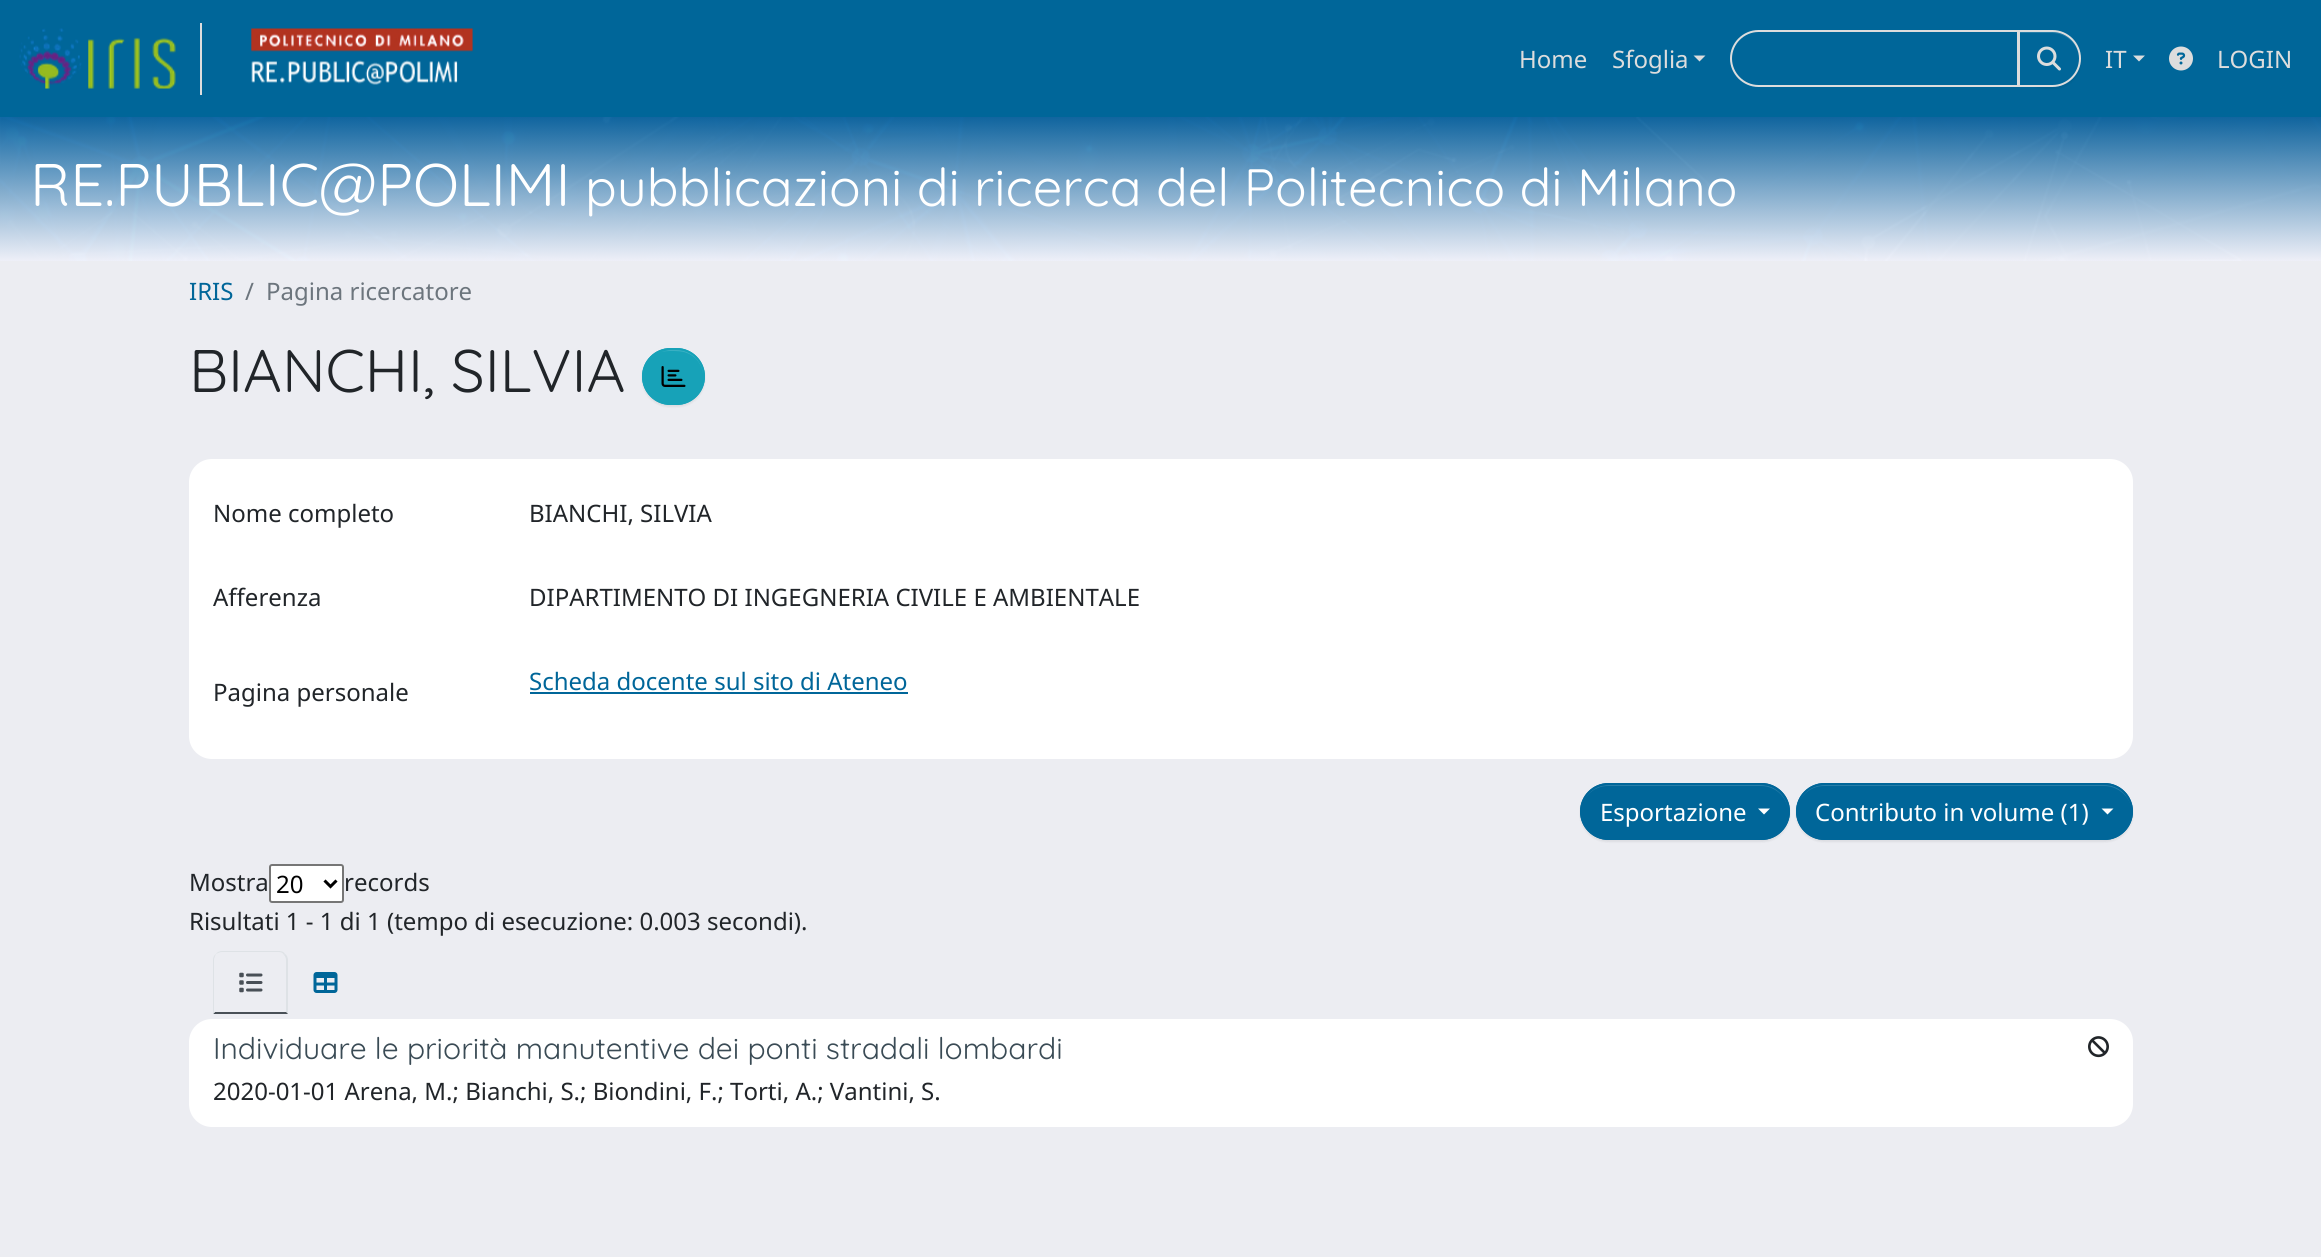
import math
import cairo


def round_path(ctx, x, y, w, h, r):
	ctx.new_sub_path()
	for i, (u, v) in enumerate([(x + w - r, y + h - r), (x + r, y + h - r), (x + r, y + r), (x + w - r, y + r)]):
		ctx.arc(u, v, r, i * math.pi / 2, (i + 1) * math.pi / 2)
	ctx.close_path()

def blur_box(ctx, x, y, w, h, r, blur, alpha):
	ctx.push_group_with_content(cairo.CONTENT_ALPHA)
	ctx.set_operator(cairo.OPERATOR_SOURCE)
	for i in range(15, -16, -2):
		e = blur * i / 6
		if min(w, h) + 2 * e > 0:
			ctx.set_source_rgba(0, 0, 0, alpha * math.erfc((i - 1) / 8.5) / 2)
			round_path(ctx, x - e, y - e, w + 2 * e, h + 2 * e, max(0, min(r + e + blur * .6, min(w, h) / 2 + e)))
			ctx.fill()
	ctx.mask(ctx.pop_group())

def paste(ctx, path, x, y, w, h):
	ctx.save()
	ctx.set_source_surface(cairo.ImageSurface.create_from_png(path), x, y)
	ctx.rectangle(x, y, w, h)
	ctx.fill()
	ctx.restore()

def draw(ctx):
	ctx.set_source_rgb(0.925, 0.929, 0.949)
	ctx.paint()
	ctx.set_source_rgb(0, 0.4, 0.6)
	ctx.rectangle(0, 0, 2321, 117)
	ctx.fill()
	ctx.set_source_rgb(0.867, 0.867, 0.867)
	ctx.rectangle(200, 23, 2, 72)
	ctx.fill()
	paste(ctx, 'media/1.png', 19, 28, 157, 61)
	paste(ctx, 'media/2.png', 251, 28, 222, 57)
	ctx.select_font_face('Noto Sans')
	ctx.set_font_size(24)
	ctx.move_to(1519, 68)
	ctx.show_text('Home')
	ctx.move_to(1612, 68)
	ctx.show_text('Sfoglia')
	ctx.new_path()
	ctx.move_to(1693.5, 55.5)
	ctx.line_to(1705.5, 55.5)
	ctx.line_to(1699.5, 61.5)
	ctx.close_path()
	ctx.fill()
	ctx.new_path()
	ctx.move_to(1758.5, 31)
	ctx.line_to(2018, 31)
	ctx.line_to(2018, 86)
	ctx.line_to(1758.5, 86)
	ctx.curve_to(1743.5, 86, 1731, 73.5, 1731, 58.5)
	ctx.curve_to(1731, 43.5, 1743.5, 31, 1758.5, 31)
	ctx.close_path()
	ctx.stroke()
	ctx.set_source_rgb(0, 0, 0)
	blur_box(ctx, 2018, 32, 63, 57, 28.5, 1, 0.07)
	ctx.set_source_rgb(0, 0.4, 0.6)
	ctx.new_path()
	ctx.move_to(2018, 30)
	ctx.line_to(2052.5, 30)
	ctx.curve_to(2068, 30, 2081, 43, 2081, 58.5)
	ctx.curve_to(2081, 74, 2068, 87, 2052.5, 87)
	ctx.line_to(2018, 87)
	ctx.close_path()
	ctx.fill()
	ctx.set_source_rgb(0.149, 0.49, 0.659)
	ctx.new_path()
	ctx.move_to(2019, 33)
	ctx.line_to(2052, 33)
	ctx.curve_to(2067, 33, 2079, 45, 2079, 59)
	ctx.curve_to(2079, 44, 2067, 32, 2052, 32)
	ctx.line_to(2019, 32)
	ctx.close_path()
	ctx.fill()
	ctx.new_path()
	ctx.move_to(2019, 31)
	ctx.line_to(2052.5, 31)
	ctx.curve_to(2067.5, 31, 2080, 43.5, 2080, 58.5)
	ctx.curve_to(2080, 73.5, 2067.5, 86, 2052.5, 86)
	ctx.line_to(2019, 86)
	ctx.close_path()
	ctx.set_source_rgb(0.867, 0.867, 0.867)
	ctx.stroke()
	paste(ctx, 'media/3.png', 2037, 46, 24, 25)
	ctx.move_to(2105, 68)
	ctx.show_text('IT')
	ctx.new_path()
	ctx.move_to(2133, 55.5)
	ctx.line_to(2145, 55.5)
	ctx.line_to(2139, 61.5)
	ctx.close_path()
	ctx.fill()
	paste(ctx, 'media/4.png', 2169, 46, 24, 25)
	ctx.move_to(2217, 68)
	ctx.show_text('LOGIN')
	paste(ctx, 'media/5.png', 0, 117, 2321, 144)
	ctx.select_font_face('Quicksand Light')
	ctx.set_font_size(60)
	ctx.set_source_rgb(1, 1, 1)
	ctx.move_to(30, 206)
	ctx.show_text('RE.PUBLIC@POLIMI')
	ctx.set_font_size(52.5)
	ctx.move_to(585, 206)
	ctx.show_text('pubblicazioni di ricerca del Politecnico di Milano')
	ctx.select_font_face('Noto Sans')
	ctx.set_font_size(24)
	ctx.set_source_rgb(0, 0.4, 0.6)
	ctx.move_to(189, 300)
	ctx.show_text('IRIS')
	ctx.set_source_rgb(0.424, 0.459, 0.49)
	ctx.move_to(245, 300)
	ctx.show_text('/')
	ctx.move_to(266, 300)
	ctx.show_text('Pagina ricercatore')
	ctx.select_font_face('Quicksand Light')
	ctx.set_font_size(60)
	ctx.set_source_rgb(0.129, 0.145, 0.161)
	ctx.move_to(189, 392)
	ctx.show_text('BIANCHI, SILVIA')
	ctx.set_source_rgb(0, 0, 0)
	blur_box(ctx, 642, 350, 63, 57, 28.5, 1, 0.07)
	ctx.set_source_rgb(0.09, 0.635, 0.722)
	round_path(ctx, 642, 348, 63, 57, 28.5)
	ctx.fill()
	ctx.set_source_rgb(0.227, 0.69, 0.765)
	ctx.new_path()
	ctx.move_to(670, 351)
	ctx.curve_to(676, 351, 682, 351, 687, 353)
	ctx.curve_to(702, 359, 706, 375, 702, 388)
	ctx.curve_to(708, 374, 701, 358, 688, 352)
	ctx.curve_to(678, 348, 664, 349, 656, 355)
	ctx.curve_to(660, 352, 664, 351, 670, 351)
	ctx.close_path()
	ctx.fill()
	round_path(ctx, 643, 349, 61, 55, 27.5)
	ctx.set_source_rgb(0.09, 0.635, 0.722)
	ctx.stroke()
	paste(ctx, 'media/6.png', 661, 366, 25, 21)
	ctx.set_source_rgb(1, 1, 1)
	round_path(ctx, 189, 459, 1944, 300, 23)
	ctx.fill()
	ctx.select_font_face('Noto Sans')
	ctx.set_font_size(24)
	ctx.set_source_rgb(0.129, 0.145, 0.161)
	for x, y, s in [
		(213, 522, 'Nome completo'),
		(529, 522, 'BIANCHI, SILVIA'),
		(213, 606, 'Afferenza'),
		(529, 606, 'DIPARTIMENTO DI INGEGNERIA CIVILE E AMBIENTALE'),
		(213, 701, 'Pagina personale'),
	]:
		ctx.move_to(x, y)
		ctx.show_text(s)
	ctx.set_source_rgb(0, 0.4, 0.6)
	ctx.move_to(529, 690)
	ctx.show_text('Scheda docente sul sito di Ateneo')
	ctx.rectangle(530, 692, 378, 2)
	ctx.fill()
	ctx.set_source_rgb(0, 0, 0)
	blur_box(ctx, 1580, 785, 210, 57, 28.5, 1, 0.07)
	ctx.set_source_rgb(0, 0.4, 0.6)
	round_path(ctx, 1580, 783, 210, 57, 28.5)
	ctx.fill()
	ctx.set_source_rgb(0.149, 0.49, 0.659)
	ctx.new_path()
	ctx.move_to(1608, 786)
	ctx.line_to(1761, 786)
	ctx.curve_to(1776, 786, 1788, 798, 1788, 812)
	ctx.curve_to(1788, 797, 1776, 785, 1761, 785)
	ctx.line_to(1608, 785)
	ctx.curve_to(1593, 785, 1581, 797, 1581, 812)
	ctx.curve_to(1581, 798, 1593, 786, 1608, 786)
	ctx.close_path()
	ctx.fill()
	round_path(ctx, 1581, 784, 208, 55, 27.5)
	ctx.set_source_rgb(0, 0.4, 0.6)
	ctx.stroke()
	ctx.set_source_rgb(1, 1, 1)
	ctx.move_to(1600, 821)
	ctx.show_text('Esportazione')
	ctx.new_path()
	ctx.move_to(1758, 808.5)
	ctx.line_to(1770, 808.5)
	ctx.line_to(1764, 814.5)
	ctx.close_path()
	ctx.fill()
	ctx.set_source_rgb(0, 0, 0)
	blur_box(ctx, 1796, 785, 337, 57, 28.5, 1, 0.07)
	ctx.set_source_rgb(0, 0.4, 0.6)
	round_path(ctx, 1796, 783, 337, 57, 28.5)
	ctx.fill()
	ctx.set_source_rgb(0.149, 0.49, 0.659)
	ctx.new_path()
	ctx.move_to(1824, 786)
	ctx.line_to(2104, 786)
	ctx.curve_to(2119, 786, 2132, 798, 2132, 813)
	ctx.line_to(2132, 812)
	ctx.curve_to(2132, 797, 2120, 785, 2105, 785)
	ctx.line_to(1824, 785)
	ctx.curve_to(1809, 785, 1797, 797, 1797, 812)
	ctx.curve_to(1797, 798, 1809, 786, 1824, 786)
	ctx.close_path()
	ctx.fill()
	round_path(ctx, 1797, 784, 335, 55, 27.5)
	ctx.set_source_rgb(0, 0.4, 0.6)
	ctx.stroke()
	ctx.set_source_rgb(1, 1, 1)
	ctx.move_to(1815, 821)
	ctx.show_text('Contributo in volume (1)')
	ctx.new_path()
	ctx.move_to(2101.5, 808.5)
	ctx.line_to(2113.5, 808.5)
	ctx.line_to(2107.5, 814.5)
	ctx.close_path()
	ctx.fill()
	ctx.set_source_rgb(0.129, 0.145, 0.161)
	ctx.move_to(189, 891)
	ctx.show_text('Mostra')
	ctx.set_source_rgb(1, 1, 1)
	round_path(ctx, 270, 865, 73, 37, 2)
	ctx.fill_preserve()
	ctx.set_source_rgb(0.463, 0.463, 0.463)
	ctx.stroke()
	ctx.new_path()
	ctx.move_to(324.5, 880.5)
	ctx.line_to(330.5, 886.5)
	ctx.line_to(336.5, 880.5)
	ctx.set_source_rgb(0, 0, 0)
	ctx.set_line_width(3)
	ctx.stroke()
	ctx.move_to(276, 893)
	ctx.show_text('20')
	ctx.set_source_rgb(0.129, 0.145, 0.161)
	ctx.move_to(344, 891)
	ctx.show_text('records')
	ctx.move_to(189, 930)
	ctx.show_text('Risultati 1 - 1 di 1 (tempo di esecuzione: 0.003 secondi).')
	ctx.set_source_rgb(0.871, 0.886, 0.902)
	ctx.new_path()
	ctx.move_to(222, 951)
	ctx.curve_to(220, 951, 217, 952, 216, 954)
	ctx.curve_to(218, 953, 220, 952, 222, 952)
	ctx.line_to(279, 952)
	ctx.curve_to(281, 952, 283, 953, 284, 955)
	ctx.line_to(285, 954)
	ctx.curve_to(284, 952, 282, 951, 279, 951)
	ctx.close_path()
	ctx.fill()
	ctx.new_path()
	ctx.move_to(288, 1014)
	ctx.line_to(288, 960)
	ctx.curve_to(288, 958, 287, 955, 285, 954)
	ctx.line_to(284, 955)
	ctx.curve_to(285, 956, 286, 958, 286, 960)
	ctx.line_to(286, 1012)
	ctx.close_path()
	ctx.fill()
	ctx.set_source_rgb(0.286, 0.314, 0.341)
	ctx.new_path()
	ctx.move_to(288, 1014)
	ctx.line_to(286, 1012)
	ctx.line_to(215, 1012)
	ctx.line_to(213, 1014)
	ctx.close_path()
	ctx.fill()
	ctx.set_source_rgb(0.871, 0.886, 0.902)
	ctx.new_path()
	ctx.move_to(213, 1014)
	ctx.line_to(215, 1012)
	ctx.line_to(214, 1012)
	ctx.line_to(214, 960)
	ctx.curve_to(214, 958, 215, 956, 216, 954)
	ctx.curve_to(214, 955, 213, 958, 213, 960)
	ctx.close_path()
	ctx.fill()
	paste(ctx, 'media/7.png', 239, 972, 24, 21)
	paste(ctx, 'media/8.png', 313, 972, 25, 21)
	ctx.set_source_rgb(1, 1, 1)
	round_path(ctx, 189, 1019, 1944, 108, 23)
	ctx.fill()
	ctx.select_font_face('Quicksand Light')
	ctx.set_font_size(30)
	ctx.set_source_rgb(0.227, 0.294, 0.333)
	ctx.move_to(213, 1059)
	ctx.show_text('Individuare le priorità manutentive dei ponti stradali lombardi')
	paste(ctx, 'media/9.png', 2088, 1036, 21, 22)
	ctx.select_font_face('Noto Sans')
	ctx.set_font_size(24)
	ctx.set_source_rgb(0.129, 0.145, 0.161)
	ctx.move_to(213, 1100)
	ctx.show_text('2020-01-01 Arena, M.; Bianchi, S.; Biondini, F.; Torti, A.; Vantini, S.')


surface = cairo.ImageSurface(cairo.FORMAT_RGB24, 2321, 1257)
ctx = cairo.Context(surface)
options = cairo.FontOptions()
options.set_hint_metrics(cairo.HINT_METRICS_OFF)
options.set_hint_style(cairo.HINT_STYLE_NONE)
ctx.set_font_options(options)
ctx.set_miter_limit(4)
draw(ctx)
surface.write_to_png('image.png')
